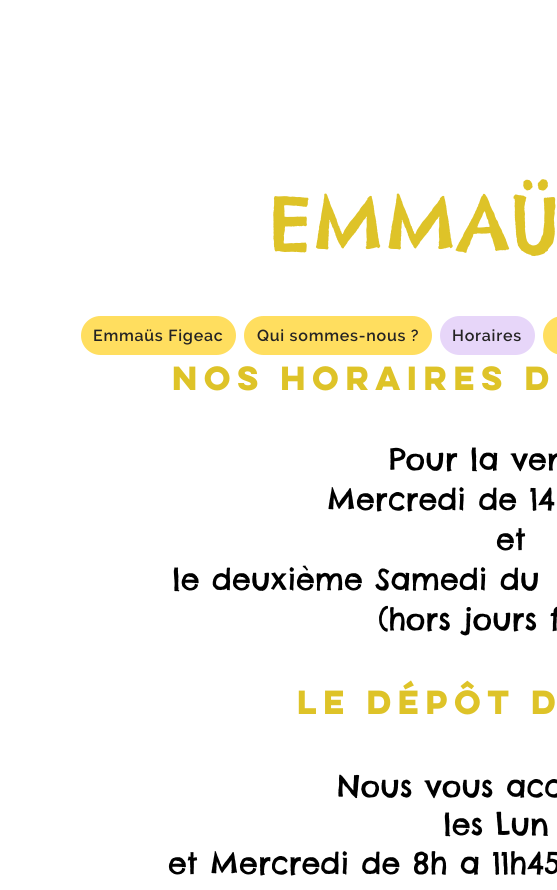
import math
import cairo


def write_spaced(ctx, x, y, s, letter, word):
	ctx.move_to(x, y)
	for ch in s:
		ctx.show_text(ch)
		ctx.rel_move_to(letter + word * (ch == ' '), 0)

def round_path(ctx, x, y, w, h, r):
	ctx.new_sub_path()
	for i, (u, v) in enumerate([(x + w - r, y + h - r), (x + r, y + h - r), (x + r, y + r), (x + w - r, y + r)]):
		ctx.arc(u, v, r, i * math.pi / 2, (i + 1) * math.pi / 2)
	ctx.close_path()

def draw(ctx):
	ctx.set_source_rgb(1, 1, 1)
	ctx.paint()
	ctx.select_font_face('Chelsea Market')
	ctx.set_font_size(75)
	ctx.set_source_rgb(0.871, 0.765, 0.157)
	ctx.move_to(269, 251)
	ctx.show_text('EMMAÜ')
	ctx.set_source_rgb(1, 0.871, 0.373)
	round_path(ctx, 81, 316, 155, 39, 19.5)
	ctx.fill()
	ctx.select_font_face('Raleway SemiBold')
	ctx.set_font_size(16)
	ctx.set_source_rgb(0.141, 0.137, 0.137)
	write_spaced(ctx, 93, 341, 'Emmaüs Figeac', 0.75, 0)
	ctx.set_source_rgb(1, 0.871, 0.373)
	round_path(ctx, 244, 316, 188, 39, 19.5)
	ctx.fill()
	ctx.set_source_rgb(0.141, 0.137, 0.137)
	write_spaced(ctx, 257, 341, 'Qui sommes-nous ?', 0.75, 0)
	ctx.set_source_rgb(0.906, 0.839, 0.976)
	round_path(ctx, 440, 316, 95, 39, 19.5)
	ctx.fill()
	ctx.set_source_rgb(0.141, 0.137, 0.137)
	write_spaced(ctx, 452, 341, 'Horaires', 0.75, 0)
	ctx.set_source_rgb(1, 0.871, 0.373)
	round_path(ctx, 543, 316, 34, 39, 19.5)
	ctx.fill()
	ctx.select_font_face('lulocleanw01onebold', cairo.FONT_SLANT_NORMAL, cairo.FONT_WEIGHT_BOLD)
	ctx.set_font_size(30)
	ctx.set_source_rgb(0.871, 0.765, 0.157)
	ctx.move_to(172, 390)
	ctx.show_text('NOS HORAIRES D')
	ctx.select_font_face('Chelsea Market')
	ctx.set_source_rgb(0, 0, 0)
	for x, y, s in [
		(389, 470, 'Pour la ven'),
		(327, 510, 'Mercredi de 14'),
		(496, 550, 'et'),
		(172, 590, 'le deuxième Samedi du'),
		(378, 630, '(hors jours f'),
	]:
		ctx.move_to(x, y)
		ctx.show_text(s)
	ctx.select_font_face('lulocleanw01onebold', cairo.FONT_SLANT_NORMAL, cairo.FONT_WEIGHT_BOLD)
	ctx.set_source_rgb(0.871, 0.765, 0.157)
	ctx.move_to(297, 714)
	ctx.show_text('le dépôt d')
	ctx.select_font_face('Chelsea Market')
	ctx.set_source_rgb(0, 0, 0)
	for x, y, s in [
		(337, 797, 'Nous vous acc'),
		(443, 835, 'les Lun'),
		(168, 874, 'et Mercredi de 8h a 11h45'),
	]:
		ctx.move_to(x, y)
		ctx.show_text(s)


surface = cairo.ImageSurface(cairo.FORMAT_RGB24, 557, 890)
ctx = cairo.Context(surface)
options = cairo.FontOptions()
options.set_hint_metrics(cairo.HINT_METRICS_OFF)
options.set_hint_style(cairo.HINT_STYLE_NONE)
ctx.set_font_options(options)
ctx.set_miter_limit(4)
draw(ctx)
surface.write_to_png('image.png')
